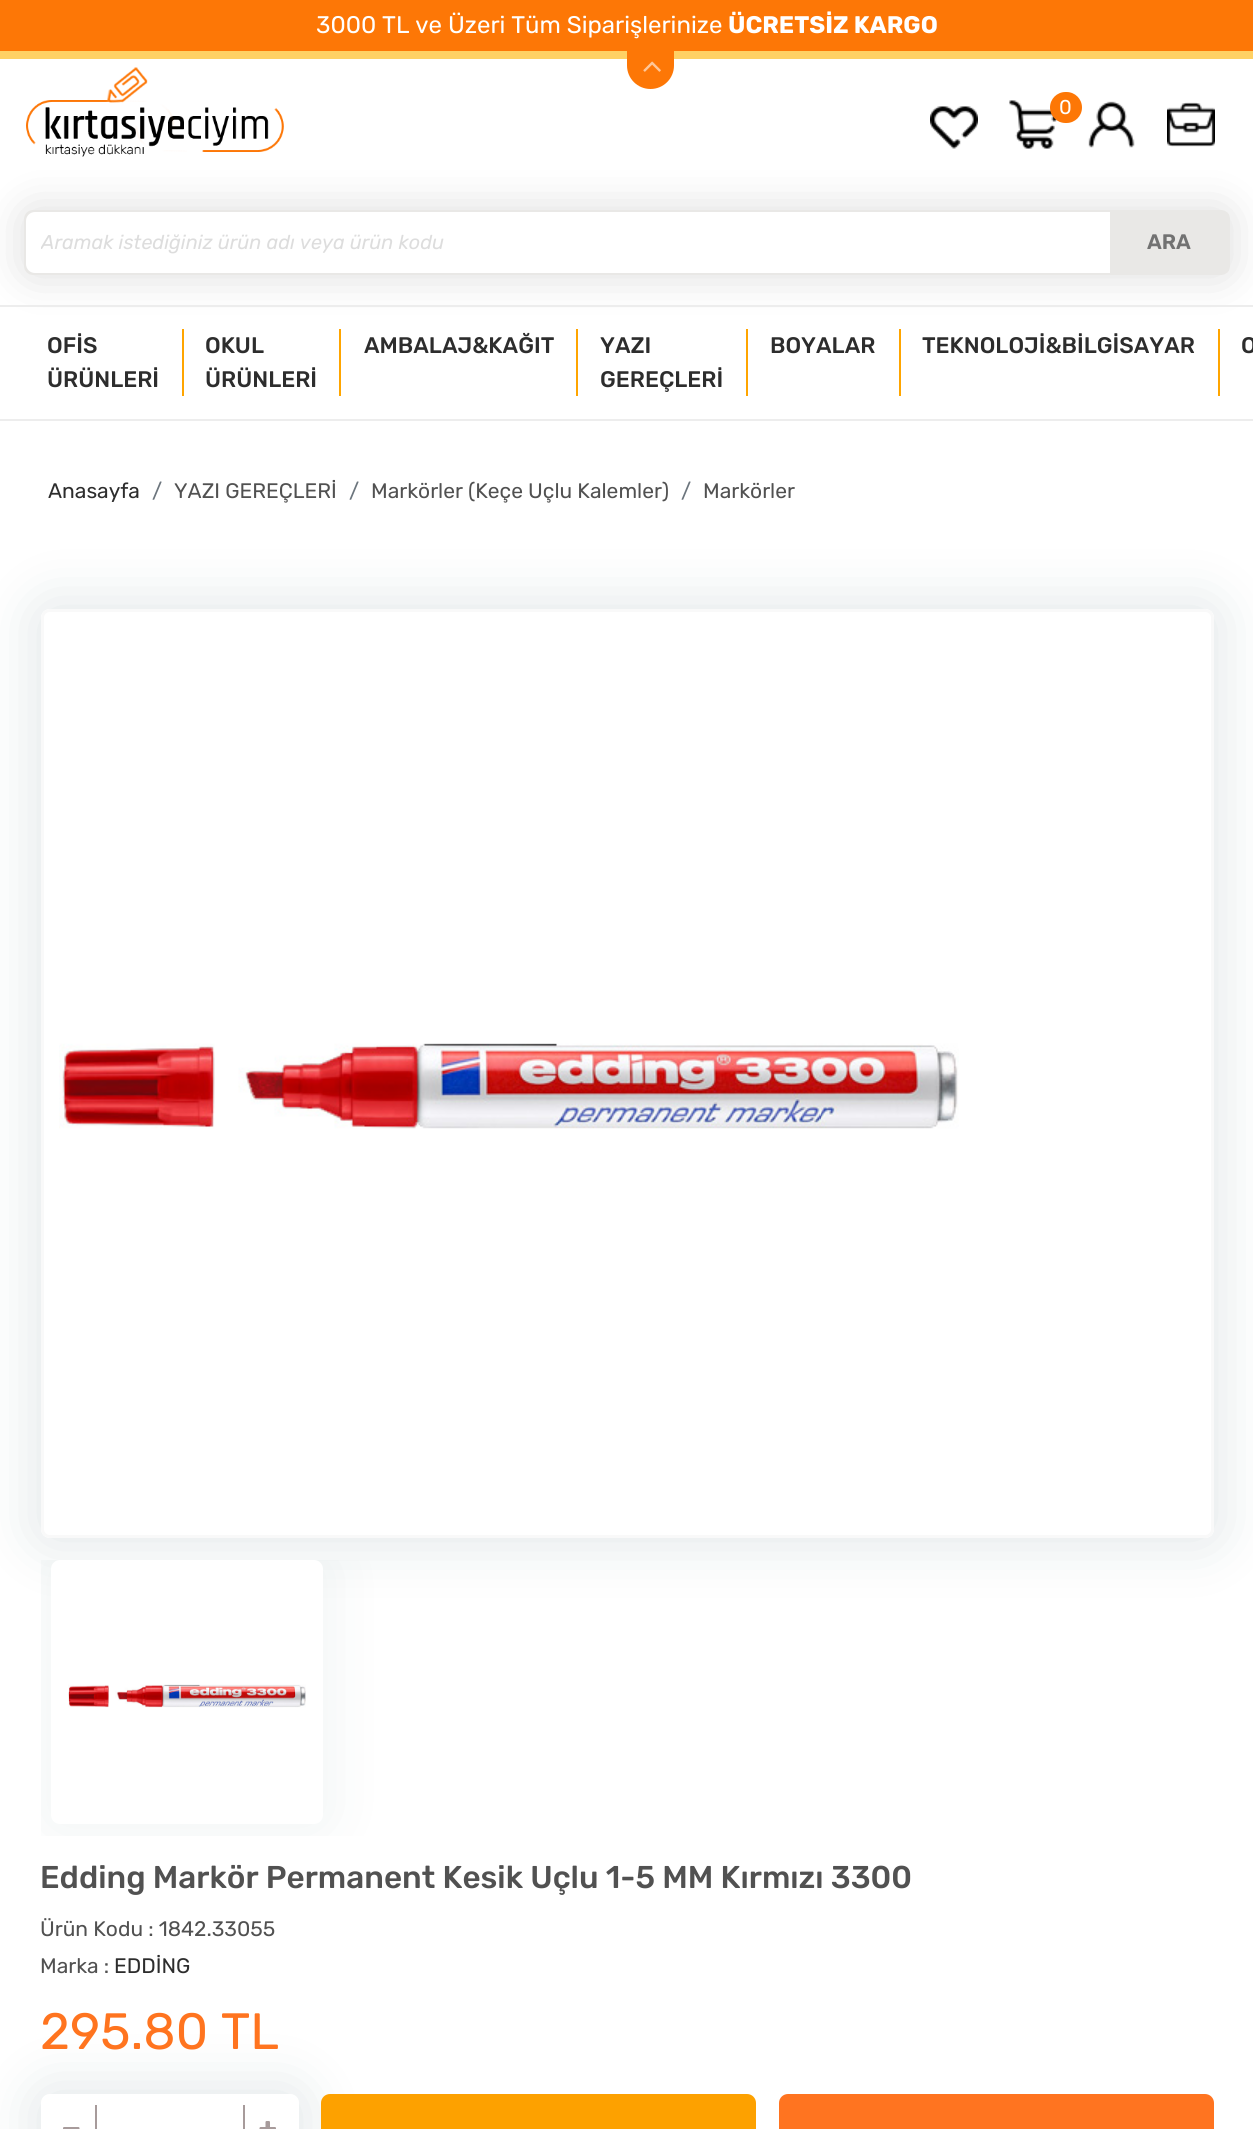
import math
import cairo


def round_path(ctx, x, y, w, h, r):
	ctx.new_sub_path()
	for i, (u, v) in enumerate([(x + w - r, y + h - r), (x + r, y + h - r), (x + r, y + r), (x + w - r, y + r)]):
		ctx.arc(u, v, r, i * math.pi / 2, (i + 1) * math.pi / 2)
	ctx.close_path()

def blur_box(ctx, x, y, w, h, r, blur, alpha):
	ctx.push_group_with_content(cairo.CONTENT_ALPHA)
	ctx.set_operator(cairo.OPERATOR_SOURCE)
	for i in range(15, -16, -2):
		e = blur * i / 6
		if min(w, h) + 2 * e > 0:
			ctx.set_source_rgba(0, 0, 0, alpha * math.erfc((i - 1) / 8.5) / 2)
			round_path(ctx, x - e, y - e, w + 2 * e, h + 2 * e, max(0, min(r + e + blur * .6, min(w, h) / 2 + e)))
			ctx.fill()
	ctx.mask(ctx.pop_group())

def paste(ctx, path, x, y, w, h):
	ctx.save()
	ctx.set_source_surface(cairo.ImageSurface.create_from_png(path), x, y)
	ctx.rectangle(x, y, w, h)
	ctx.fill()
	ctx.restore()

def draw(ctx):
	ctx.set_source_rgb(1, 1, 1)
	ctx.paint()
	ctx.set_source_rgb(0.992, 0.467, 0.027)
	ctx.rectangle(0, 0, 1253, 51)
	ctx.fill()
	ctx.set_source_rgb(1, 0.82, 0.392)
	ctx.rectangle(0, 51, 1253, 8)
	ctx.fill()
	ctx.select_font_face('Rubik')
	ctx.set_font_size(24)
	ctx.set_source_rgb(1, 1, 1)
	ctx.move_to(316, 33)
	ctx.show_text('3000 TL ve Üzeri Tüm Siparişlerinize')
	ctx.select_font_face('Rubik', cairo.FONT_SLANT_NORMAL, cairo.FONT_WEIGHT_BOLD)
	ctx.move_to(728, 33)
	ctx.show_text('ÜCRETSİZ KARGO')
	ctx.set_source_rgb(0.992, 0.467, 0.027)
	ctx.new_path()
	ctx.move_to(627, 42)
	ctx.line_to(674, 42)
	ctx.line_to(674, 65.5)
	ctx.curve_to(674, 78.5, 663.5, 89, 650.5, 89)
	ctx.curve_to(637.5, 89, 627, 78.5, 627, 65.5)
	ctx.close_path()
	ctx.fill()
	paste(ctx, 'media/1.png', 643, 61, 18, 11)
	paste(ctx, 'media/2.png', 26, 67, 258, 90)
	paste(ctx, 'media/3.png', 930, 106, 48, 43)
	paste(ctx, 'media/4.png', 1009, 100, 48, 49)
	round_path(ctx, 1050, 92, 32, 31, 15.5)
	ctx.fill()
	ctx.select_font_face('Rubik')
	ctx.set_font_size(20)
	ctx.set_source_rgb(1, 1, 1)
	ctx.move_to(1059, 114)
	ctx.show_text('0')
	paste(ctx, 'media/5.png', 1088, 101, 47, 47)
	paste(ctx, 'media/6.png', 1167, 102, 48, 45)
	ctx.set_source_rgb(0, 0, 0)
	blur_box(ctx, 24, 210, 1206, 65, 9, 22, 0.14)
	ctx.set_source_rgb(0.914, 0.91, 0.902)
	round_path(ctx, 24, 210, 1206, 65, 9)
	ctx.fill()
	ctx.set_source_rgb(1, 1, 1)
	ctx.new_path()
	ctx.move_to(35, 212)
	ctx.line_to(1110, 212)
	ctx.line_to(1110, 273)
	ctx.line_to(35, 273)
	ctx.curve_to(30, 273, 26, 269, 26, 264)
	ctx.line_to(26, 221)
	ctx.curve_to(26, 216, 30, 212, 35, 212)
	ctx.close_path()
	ctx.fill()
	ctx.save()
	ctx.rectangle(41, 228, 1066, 26)
	ctx.clip()
	ctx.select_font_face('Rubik', cairo.FONT_SLANT_ITALIC)
	ctx.set_font_size(19.95)
	ctx.set_source_rgb(0.867, 0.867, 0.867)
	ctx.move_to(41, 249)
	ctx.show_text('Aramak istediğiniz ürün adı veya ürün kodu')
	ctx.restore()
	ctx.save()
	round_path(ctx, 24, 210, 1206, 65, 9)
	ctx.clip()
	ctx.set_source_rgb(0.914, 0.91, 0.902)
	ctx.rectangle(1110, 212, 119, 61)
	ctx.fill()
	ctx.restore()
	ctx.select_font_face('Rubik SemiBold')
	ctx.set_font_size(21)
	ctx.set_source_rgb(0.447, 0.447, 0.447)
	ctx.move_to(1147, 249)
	ctx.show_text('ARA')
	ctx.set_source_rgb(0.929, 0.929, 0.929)
	ctx.rectangle(0, 305, 1253, 2)
	ctx.rectangle(0, 419, 1253, 2)
	ctx.fill()
	ctx.set_source_rgb(1, 0.647, 0)
	ctx.rectangle(182, 329, 2, 67)
	ctx.fill()
	ctx.select_font_face('Rubik Medium')
	ctx.set_font_size(22.5)
	ctx.set_source_rgb(0.176, 0.176, 0.176)
	ctx.move_to(47, 353)
	ctx.show_text('OFİS')
	ctx.move_to(47, 387)
	ctx.show_text('ÜRÜNLERİ')
	ctx.set_source_rgb(1, 0.647, 0)
	ctx.rectangle(339, 329, 2, 67)
	ctx.fill()
	ctx.set_source_rgb(0.176, 0.176, 0.176)
	ctx.move_to(205, 353)
	ctx.show_text('OKUL')
	ctx.move_to(205, 387)
	ctx.show_text('ÜRÜNLERİ')
	ctx.set_source_rgb(1, 0.647, 0)
	ctx.rectangle(576, 329, 2, 67)
	ctx.fill()
	ctx.set_source_rgb(0.176, 0.176, 0.176)
	ctx.move_to(364, 353)
	ctx.show_text('AMBALAJ&KAĞIT')
	ctx.set_source_rgb(1, 0.647, 0)
	ctx.rectangle(746, 329, 2, 67)
	ctx.fill()
	ctx.set_source_rgb(0.176, 0.176, 0.176)
	ctx.move_to(600, 353)
	ctx.show_text('YAZI')
	ctx.move_to(600, 387)
	ctx.show_text('GEREÇLERİ')
	ctx.set_source_rgb(1, 0.647, 0)
	ctx.rectangle(899, 329, 2, 67)
	ctx.fill()
	ctx.set_source_rgb(0.176, 0.176, 0.176)
	ctx.move_to(770, 353)
	ctx.show_text('BOYALAR')
	ctx.set_source_rgb(1, 0.647, 0)
	ctx.rectangle(1218, 329, 2, 67)
	ctx.fill()
	ctx.set_source_rgb(0.176, 0.176, 0.176)
	ctx.move_to(922, 353)
	ctx.show_text('TEKNOLOJİ&BİLGİSAYAR')
	ctx.move_to(1241, 353)
	ctx.show_text('O')
	ctx.select_font_face('Rubik')
	ctx.set_font_size(21)
	ctx.move_to(48, 498)
	ctx.show_text('Anasayfa')
	ctx.set_source_rgb(0.424, 0.459, 0.49)
	ctx.move_to(152, 498)
	ctx.show_text('/')
	ctx.set_source_rgb(0.318, 0.318, 0.318)
	ctx.move_to(174, 498)
	ctx.show_text('YAZI GEREÇLERİ')
	ctx.set_source_rgb(0.424, 0.459, 0.49)
	ctx.move_to(349, 498)
	ctx.show_text('/')
	ctx.set_source_rgb(0.318, 0.318, 0.318)
	ctx.move_to(371, 498)
	ctx.show_text('Markörler (Keçe Uçlu Kalemler)')
	ctx.set_source_rgb(0.424, 0.459, 0.49)
	ctx.move_to(681, 498)
	ctx.show_text('/')
	ctx.set_source_rgb(0.318, 0.318, 0.318)
	ctx.move_to(703, 498)
	ctx.show_text('Markörler')
	ctx.save()
	ctx.set_fill_rule(cairo.FILL_RULE_EVEN_ODD)
	ctx.new_path()
	ctx.move_to(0, 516)
	ctx.line_to(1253, 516)
	ctx.line_to(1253, 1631)
	ctx.line_to(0, 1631)
	ctx.close_path()
	ctx.move_to(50, 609)
	ctx.line_to(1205, 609)
	ctx.curve_to(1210, 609, 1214, 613, 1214, 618)
	ctx.line_to(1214, 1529)
	ctx.curve_to(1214, 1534, 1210, 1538, 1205, 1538)
	ctx.line_to(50, 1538)
	ctx.curve_to(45, 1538, 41, 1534, 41, 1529)
	ctx.line_to(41, 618)
	ctx.curve_to(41, 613, 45, 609, 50, 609)
	ctx.close_path()
	ctx.clip()
	ctx.set_source_rgb(0.655, 0.729, 0.737)
	blur_box(ctx, 32, 600, 1191, 947, 18, 27.5, 0.31)
	ctx.restore()
	round_path(ctx, 42.5, 610.5, 1170, 926, 7.5)
	ctx.set_source_rgb(0.973, 0.976, 0.976)
	ctx.set_line_width(3)
	ctx.stroke()
	paste(ctx, 'media/7.png', 59, 1043, 900, 86)
	ctx.save()
	ctx.rectangle(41, 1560, 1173, 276)
	ctx.clip()
	ctx.set_source_rgb(0.655, 0.729, 0.737)
	blur_box(ctx, 42, 1551, 290, 282, 18, 27.5, 0.15)
	ctx.restore()
	ctx.set_source_rgb(1, 1, 1)
	round_path(ctx, 52, 1561, 270, 262, 8)
	ctx.fill_preserve()
	ctx.set_line_width(2)
	ctx.stroke()
	paste(ctx, 'media/8.png', 68, 1684, 238, 24)
	ctx.select_font_face('Rubik Medium')
	ctx.set_font_size(31.5)
	ctx.set_source_rgb(0.318, 0.318, 0.318)
	ctx.move_to(40, 1888)
	ctx.show_text('Edding Markör Permanent Kesik Uçlu 1-5 MM Kırmızı 3300')
	ctx.select_font_face('Rubik')
	ctx.set_font_size(21)
	ctx.move_to(40, 1936)
	ctx.show_text('Ürün Kodu : 1842.33055')
	ctx.move_to(40, 1973)
	ctx.show_text('Marka :')
	ctx.set_source_rgb(0.176, 0.176, 0.176)
	ctx.move_to(114, 1973)
	ctx.show_text('EDDİNG')
	ctx.save()
	ctx.set_fill_rule(cairo.FILL_RULE_EVEN_ODD)
	ctx.new_path()
	ctx.move_to(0, 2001)
	ctx.line_to(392, 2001)
	ctx.line_to(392, 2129)
	ctx.line_to(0, 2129)
	ctx.close_path()
	ctx.move_to(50, 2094)
	ctx.line_to(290, 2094)
	ctx.curve_to(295, 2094, 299, 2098, 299, 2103)
	ctx.line_to(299, 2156)
	ctx.curve_to(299, 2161, 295, 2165, 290, 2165)
	ctx.line_to(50, 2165)
	ctx.curve_to(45, 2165, 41, 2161, 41, 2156)
	ctx.line_to(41, 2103)
	ctx.curve_to(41, 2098, 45, 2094, 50, 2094)
	ctx.close_path()
	ctx.clip()
	ctx.set_source_rgb(0.655, 0.729, 0.737)
	blur_box(ctx, 32, 2085, 276, 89, 18, 27.5, 0.31)
	ctx.restore()
	paste(ctx, 'media/9.png', 63, 2127, 17, 2)
	ctx.set_source_rgb(0.655, 0.608, 0.608)
	ctx.rectangle(243, 2105, 2, 24)
	ctx.fill()
	ctx.rectangle(95, 2105, 2, 24)
	ctx.fill()
	paste(ctx, 'media/10.png', 259, 2121, 17, 8)
	ctx.set_source_rgb(0.992, 0.631, 0)
	round_path(ctx, 321, 2094, 435, 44, 9)
	ctx.fill()
	ctx.set_source_rgb(1, 0.455, 0.125)
	round_path(ctx, 779, 2094, 435, 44, 9)
	ctx.fill()
	ctx.set_font_size(51)
	ctx.set_source_rgb(1, 0.455, 0.122)
	ctx.move_to(40, 2049)
	ctx.show_text('295.80 TL')


surface = cairo.ImageSurface(cairo.FORMAT_RGB24, 1253, 2129)
ctx = cairo.Context(surface)
options = cairo.FontOptions()
options.set_hint_metrics(cairo.HINT_METRICS_OFF)
options.set_hint_style(cairo.HINT_STYLE_NONE)
ctx.set_font_options(options)
ctx.set_miter_limit(4)
draw(ctx)
surface.write_to_png('image.png')
